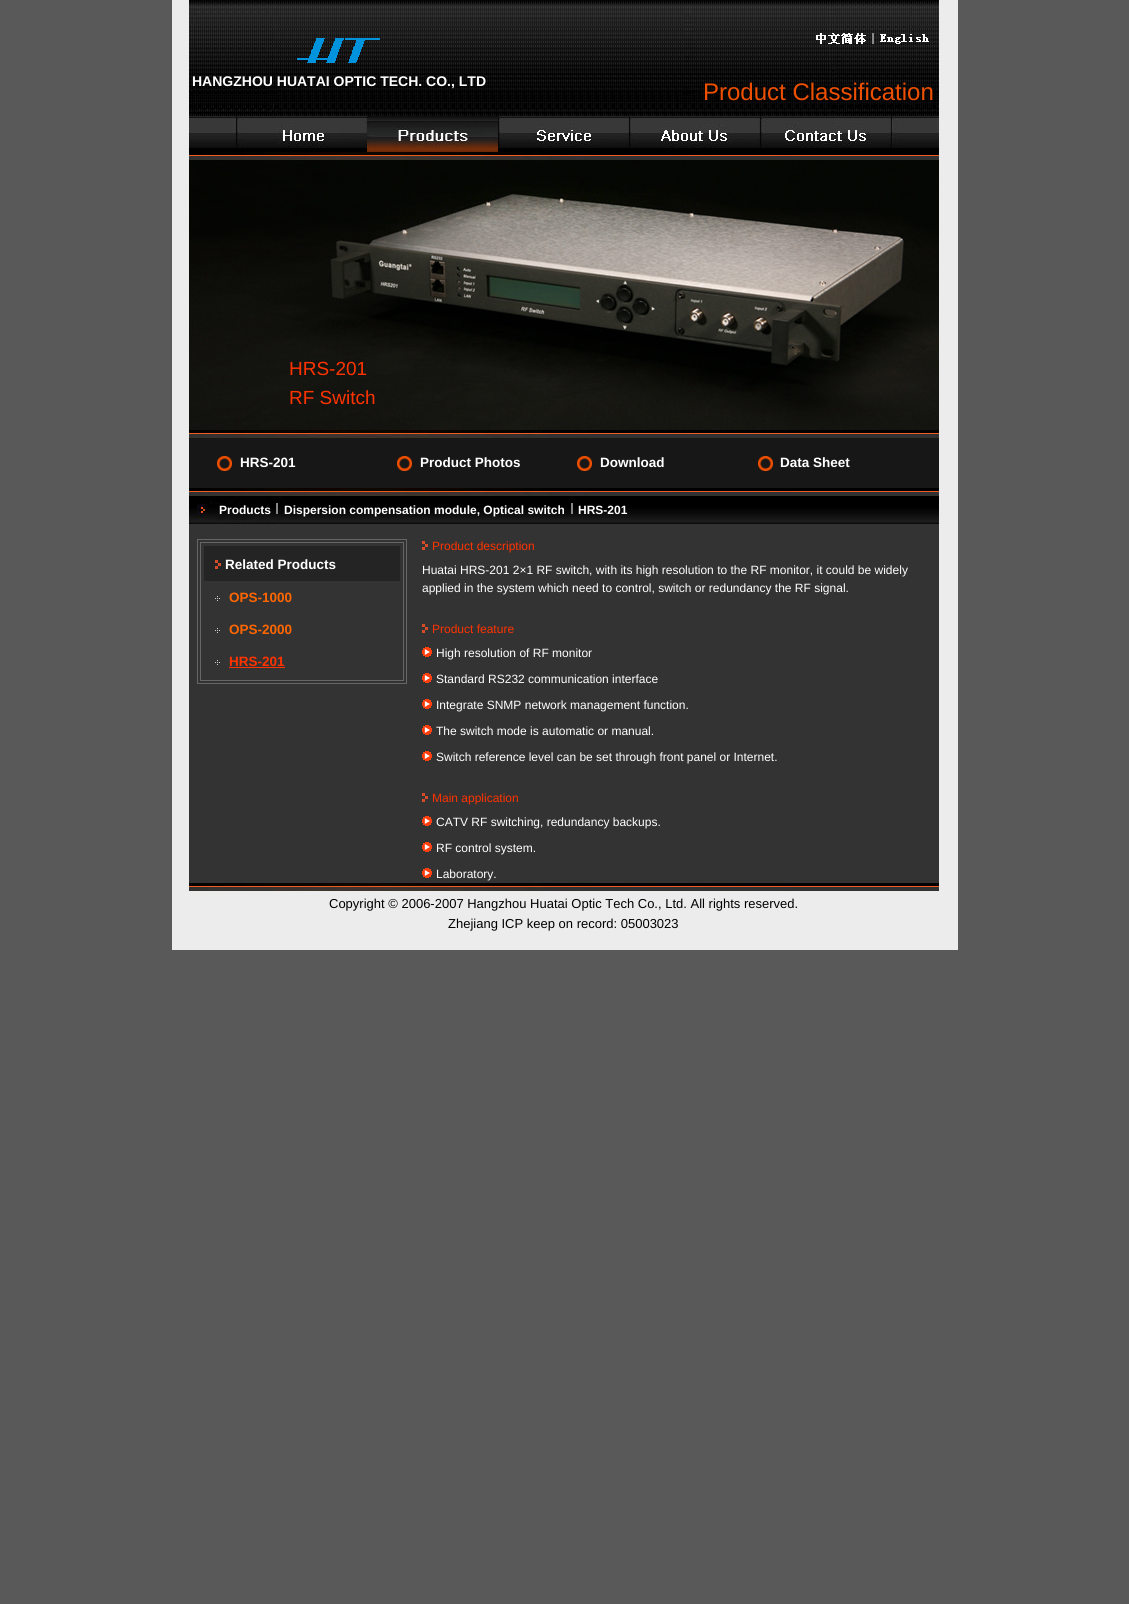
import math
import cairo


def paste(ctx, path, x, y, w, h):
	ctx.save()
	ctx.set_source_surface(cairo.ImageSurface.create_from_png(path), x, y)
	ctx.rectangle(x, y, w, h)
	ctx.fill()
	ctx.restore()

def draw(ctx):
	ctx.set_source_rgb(0.349, 0.349, 0.349)
	ctx.paint()
	ctx.set_source_rgb(0.922, 0.922, 0.922)
	ctx.rectangle(172, 0, 786, 950)
	ctx.fill()
	paste(ctx, 'media/1.png', 189, 0, 750, 116)
	paste(ctx, 'media/2.png', 816, 33, 50, 11)
	ctx.set_source_rgb(0.533, 0.533, 0.533)
	ctx.rectangle(872, 33, 2, 11)
	ctx.fill()
	paste(ctx, 'media/3.png', 880, 34, 49, 10)
	paste(ctx, 'media/4.png', 297, 38, 83, 25)
	ctx.select_font_face('Liberation Sans', cairo.FONT_SLANT_NORMAL, cairo.FONT_WEIGHT_BOLD)
	ctx.set_font_size(14)
	ctx.set_source_rgb(1, 1, 1)
	ctx.move_to(192, 86)
	ctx.show_text('HANGZHOU HUATAI OPTIC TECH. CO., LTD')
	ctx.select_font_face('Liberation Sans')
	ctx.set_font_size(24)
	ctx.set_source_rgb(0.937, 0.31, 0)
	ctx.move_to(703, 100)
	ctx.show_text('Product Classification')
	paste(ctx, 'media/5.png', 189, 116, 47, 36)
	paste(ctx, 'media/6.png', 236, 116, 131, 36)
	paste(ctx, 'media/7.png', 367, 116, 131, 36)
	paste(ctx, 'media/8.png', 498, 116, 131, 36)
	paste(ctx, 'media/9.png', 629, 116, 131, 36)
	paste(ctx, 'media/10.png', 760, 116, 131, 36)
	paste(ctx, 'media/11.png', 891, 116, 22, 36)
	paste(ctx, 'media/12.png', 913, 116, 26, 36)
	paste(ctx, 'media/13.png', 189, 152, 750, 8)
	paste(ctx, 'media/14.png', 189, 160, 750, 270)
	ctx.set_font_size(19)
	ctx.set_source_rgb(1, 0.2, 0)
	ctx.move_to(289, 375)
	ctx.show_text('HRS-201')
	ctx.move_to(289, 404)
	ctx.show_text('RF Switch')
	paste(ctx, 'media/13.png', 189, 430, 750, 8)
	ctx.set_source_rgb(0.09, 0.09, 0.09)
	ctx.rectangle(189, 438, 750, 50)
	ctx.fill()
	paste(ctx, 'media/15.png', 217, 456, 15, 15)
	ctx.select_font_face('Liberation Sans', cairo.FONT_SLANT_NORMAL, cairo.FONT_WEIGHT_BOLD)
	ctx.set_font_size(13.5)
	ctx.set_source_rgb(1, 1, 1)
	ctx.move_to(240, 467)
	ctx.show_text('HRS-201')
	paste(ctx, 'media/16.png', 397, 456, 15, 15)
	ctx.move_to(420, 467)
	ctx.show_text('Product Photos')
	paste(ctx, 'media/15.png', 577, 456, 15, 15)
	ctx.move_to(600, 467)
	ctx.show_text('Download')
	paste(ctx, 'media/16.png', 758, 456, 15, 15)
	ctx.move_to(780, 467)
	ctx.show_text('Data Sheet')
	ctx.set_source_rgb(0.2, 0.2, 0.2)
	ctx.rectangle(189, 524, 750, 359)
	ctx.fill()
	paste(ctx, 'media/13.png', 189, 488, 750, 8)
	paste(ctx, 'media/17.png', 189, 496, 750, 28)
	ctx.set_font_size(12)
	ctx.set_source_rgb(1, 1, 1)
	ctx.move_to(219, 514)
	ctx.show_text('Products')
	ctx.set_source_rgb(0.533, 0.533, 0.533)
	ctx.rectangle(276, 503, 2, 11)
	ctx.fill()
	ctx.set_source_rgb(1, 1, 1)
	ctx.move_to(284, 514)
	ctx.show_text('Dispersion compensation module, Optical switch')
	ctx.set_source_rgb(0.533, 0.533, 0.533)
	ctx.rectangle(571, 503, 2, 11)
	ctx.fill()
	ctx.set_source_rgb(1, 1, 1)
	ctx.move_to(578, 514)
	ctx.show_text('HRS-201')
	ctx.rectangle(197.5, 539.5, 209, 144)
	ctx.set_source_rgb(0.4, 0.4, 0.4)
	ctx.set_line_width(1)
	ctx.stroke()
	ctx.rectangle(200.5, 542.5, 203, 138)
	ctx.stroke()
	ctx.set_source_rgb(0.141, 0.141, 0.141)
	ctx.rectangle(204, 546, 196, 35)
	ctx.fill()
	paste(ctx, 'media/18.png', 215, 560, 6, 9)
	ctx.set_font_size(13.5)
	ctx.set_source_rgb(1, 1, 1)
	ctx.move_to(225, 569)
	ctx.show_text('Related Products')
	paste(ctx, 'media/19.png', 215, 596, 5, 5)
	ctx.set_source_rgb(1, 0.4, 0)
	ctx.move_to(229, 602)
	ctx.show_text('OPS-1000')
	paste(ctx, 'media/19.png', 215, 628, 5, 5)
	ctx.move_to(229, 634)
	ctx.show_text('OPS-2000')
	paste(ctx, 'media/19.png', 215, 660, 5, 5)
	ctx.set_source_rgb(1, 0.2, 0)
	ctx.move_to(229, 666)
	ctx.show_text('HRS-201')
	ctx.rectangle(229, 667, 56, 1)
	ctx.fill()
	paste(ctx, 'media/20.png', 422, 541, 6, 9)
	ctx.select_font_face('Liberation Sans')
	ctx.set_font_size(12)
	ctx.move_to(432, 550)
	ctx.show_text('Product description')
	ctx.set_source_rgb(1, 1, 1)
	ctx.move_to(422, 574)
	ctx.show_text('Huatai HRS-201 2×1 RF switch, with its high resolution to the RF monitor, it could be widely')
	ctx.move_to(422, 592)
	ctx.show_text('applied in the system which need to control, switch or redundancy the RF signal.')
	paste(ctx, 'media/20.png', 422, 624, 6, 9)
	ctx.set_source_rgb(1, 0.2, 0)
	ctx.move_to(432, 633)
	ctx.show_text('Product feature')
	paste(ctx, 'media/21.png', 422, 647, 10, 10)
	ctx.set_source_rgb(1, 1, 1)
	ctx.move_to(436, 657)
	ctx.show_text('High resolution of RF monitor')
	paste(ctx, 'media/21.png', 422, 673, 10, 10)
	ctx.move_to(436, 683)
	ctx.show_text('Standard RS232 communication interface')
	paste(ctx, 'media/21.png', 422, 699, 10, 10)
	ctx.move_to(436, 709)
	ctx.show_text('Integrate SNMP network management function.')
	paste(ctx, 'media/21.png', 422, 725, 10, 10)
	ctx.move_to(436, 735)
	ctx.show_text('The switch mode is automatic or manual.')
	paste(ctx, 'media/21.png', 422, 751, 10, 10)
	ctx.move_to(436, 761)
	ctx.show_text('Switch reference level can be set through front panel or Internet.')
	paste(ctx, 'media/20.png', 422, 793, 6, 9)
	ctx.set_source_rgb(1, 0.2, 0)
	ctx.move_to(432, 802)
	ctx.show_text('Main application')
	paste(ctx, 'media/21.png', 422, 816, 10, 10)
	ctx.set_source_rgb(1, 1, 1)
	ctx.move_to(436, 826)
	ctx.show_text('CATV RF switching, redundancy backups.')
	paste(ctx, 'media/21.png', 422, 842, 10, 10)
	ctx.move_to(436, 852)
	ctx.show_text('RF control system.')
	paste(ctx, 'media/21.png', 422, 868, 10, 10)
	ctx.move_to(436, 878)
	ctx.show_text('Laboratory.')
	paste(ctx, 'media/13.png', 189, 883, 750, 8)
	ctx.set_font_size(13)
	ctx.set_source_rgb(0, 0, 0)
	ctx.move_to(329, 908)
	ctx.show_text('Copyright © 2006-2007 Hangzhou Huatai Optic Tech Co., Ltd. All rights reserved.')
	ctx.move_to(448, 928)
	ctx.show_text('Zhejiang ICP keep on record: 05003023')


surface = cairo.ImageSurface(cairo.FORMAT_RGB24, 1129, 1604)
ctx = cairo.Context(surface)
options = cairo.FontOptions()
options.set_hint_metrics(cairo.HINT_METRICS_OFF)
options.set_hint_style(cairo.HINT_STYLE_NONE)
ctx.set_font_options(options)
ctx.set_miter_limit(4)
draw(ctx)
surface.write_to_png('image.png')
